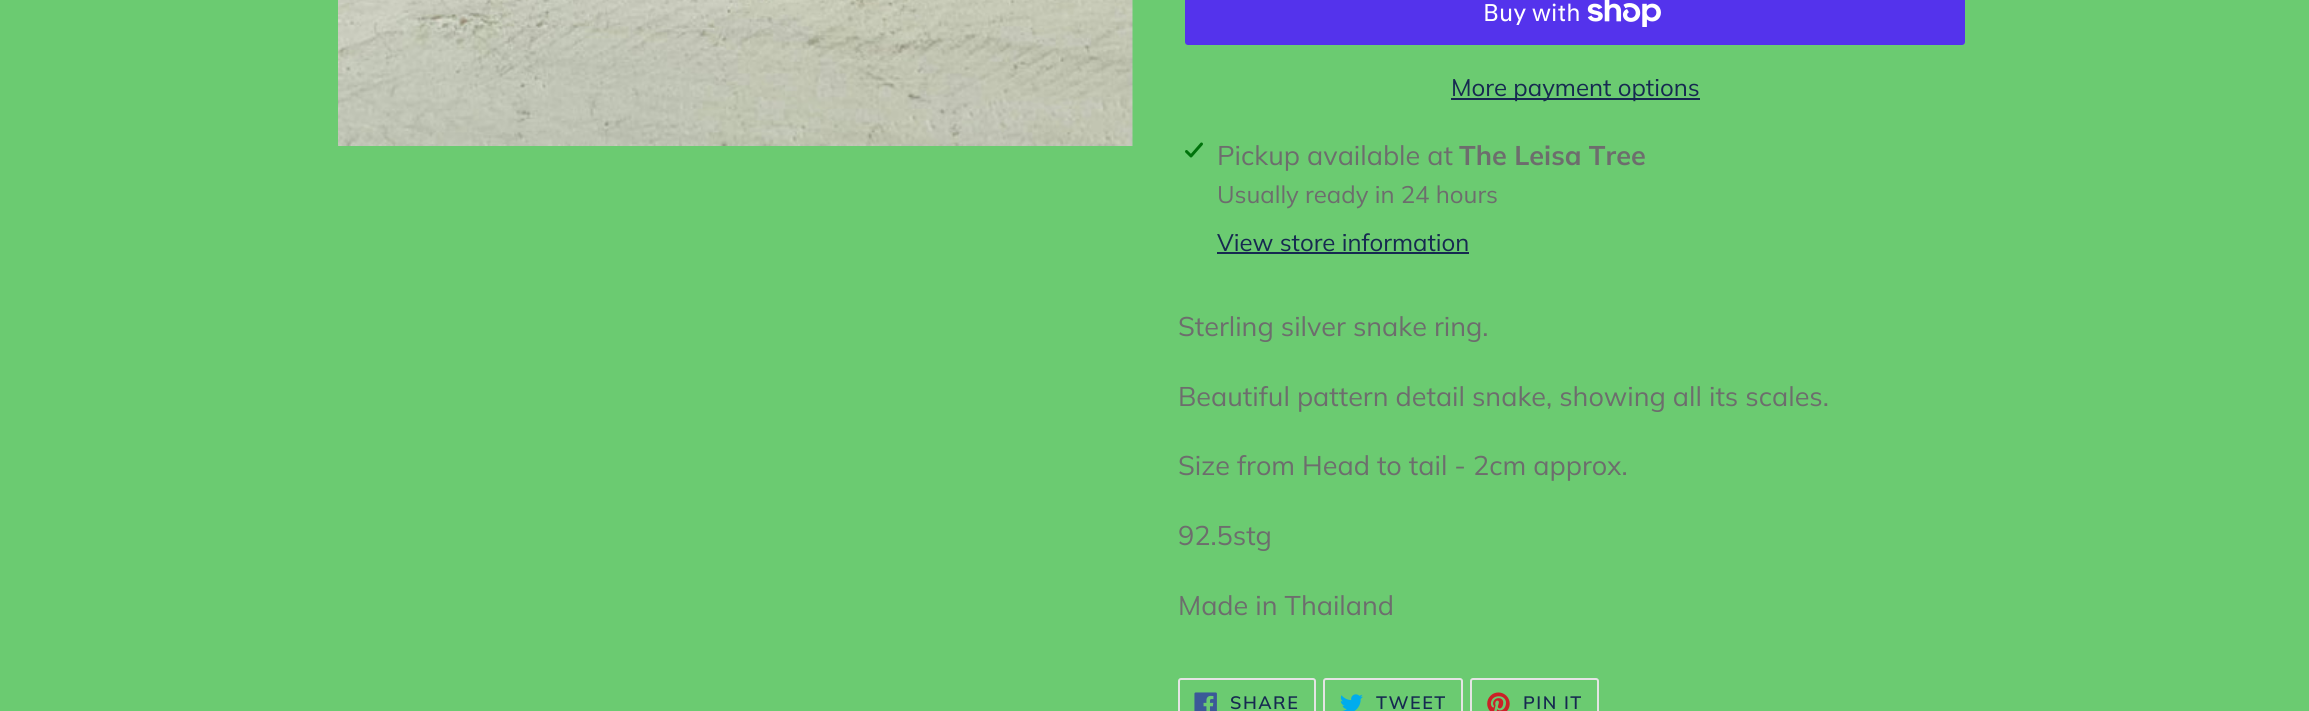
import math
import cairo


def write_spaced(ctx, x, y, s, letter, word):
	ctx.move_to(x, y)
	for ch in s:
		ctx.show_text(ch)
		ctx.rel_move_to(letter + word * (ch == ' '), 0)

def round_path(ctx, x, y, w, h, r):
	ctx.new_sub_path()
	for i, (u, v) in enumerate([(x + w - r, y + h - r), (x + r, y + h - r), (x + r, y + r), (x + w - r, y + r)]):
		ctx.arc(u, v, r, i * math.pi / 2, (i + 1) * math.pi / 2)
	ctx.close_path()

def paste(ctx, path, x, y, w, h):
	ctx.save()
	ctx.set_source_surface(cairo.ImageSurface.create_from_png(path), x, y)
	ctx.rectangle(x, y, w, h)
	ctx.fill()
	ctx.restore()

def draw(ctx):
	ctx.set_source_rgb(0.42, 0.796, 0.443)
	ctx.paint()
	paste(ctx, 'media/1.png', 338, 0, 795, 146)
	ctx.set_source_rgb(0.329, 0.2, 0.922)
	round_path(ctx, 1185, -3, 780, 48, 3)
	ctx.fill()
	ctx.select_font_face('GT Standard')
	ctx.set_font_size(24)
	ctx.set_source_rgb(1, 1, 1)
	ctx.move_to(1483, 21)
	ctx.show_text('Buy with')
	paste(ctx, 'media/2.png', 1587, 0, 74, 27)
	ctx.set_source_rgb(0.086, 0.161, 0.314)
	ctx.rectangle(1451, 98, 249, 2)
	ctx.fill()
	ctx.select_font_face('Muli')
	ctx.move_to(1451, 96)
	ctx.show_text('More payment options')
	paste(ctx, 'media/3.png', 1185, 142, 18, 16)
	ctx.set_font_size(27)
	ctx.set_source_rgb(0.427, 0.427, 0.427)
	ctx.move_to(1217, 165)
	ctx.show_text('Pickup available at')
	ctx.select_font_face('Muli', cairo.FONT_SLANT_NORMAL, cairo.FONT_WEIGHT_BOLD)
	ctx.move_to(1459, 165)
	ctx.show_text('The Leisa Tree')
	ctx.select_font_face('Muli')
	ctx.set_font_size(24)
	ctx.move_to(1217, 203)
	ctx.show_text('Usually ready in 24 hours')
	ctx.set_source_rgb(0.086, 0.161, 0.314)
	ctx.move_to(1217, 251)
	ctx.show_text('View store information')
	ctx.rectangle(1217, 252, 252, 2)
	ctx.fill()
	ctx.set_font_size(27)
	ctx.set_source_rgb(0.427, 0.427, 0.427)
	for x, y, s in [
		(1178, 336, 'Sterling silver snake ring.'),
		(1178, 406, 'Beautiful pattern detail snake, showing all its scales.'),
		(1178, 475, 'Size from Head to tail - 2cm approx.'),
		(1178, 545, '92.5stg'),
		(1178, 615, 'Made in Thailand'),
	]:
		ctx.move_to(x, y)
		ctx.show_text(s)
	round_path(ctx, 1179, 679, 136, 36, 2)
	ctx.set_source_rgb(0.894, 0.894, 0.894)
	ctx.stroke()
	paste(ctx, 'media/4.png', 1194, 692, 23, 19)
	ctx.select_font_face('Muli SemiBold')
	ctx.set_font_size(18)
	ctx.set_source_rgb(0.086, 0.161, 0.314)
	write_spaced(ctx, 1230, 709, 'SHARE', 1.5, 0)
	round_path(ctx, 1324, 679, 138, 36, 2)
	ctx.set_source_rgb(0.894, 0.894, 0.894)
	ctx.stroke()
	paste(ctx, 'media/5.png', 1340, 694, 23, 17)
	ctx.set_source_rgb(0.086, 0.161, 0.314)
	write_spaced(ctx, 1376, 709, 'TWEET', 1.5, 0)
	round_path(ctx, 1471, 679, 127, 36, 2)
	ctx.set_source_rgb(0.894, 0.894, 0.894)
	ctx.stroke()
	paste(ctx, 'media/6.png', 1487, 692, 23, 19)
	ctx.set_source_rgb(0.086, 0.161, 0.314)
	write_spaced(ctx, 1523, 709, 'PIN IT', 1.5, 0)


surface = cairo.ImageSurface(cairo.FORMAT_RGB24, 2309, 711)
ctx = cairo.Context(surface)
options = cairo.FontOptions()
options.set_hint_metrics(cairo.HINT_METRICS_OFF)
options.set_hint_style(cairo.HINT_STYLE_NONE)
ctx.set_font_options(options)
ctx.set_miter_limit(4)
draw(ctx)
surface.write_to_png('image.png')
